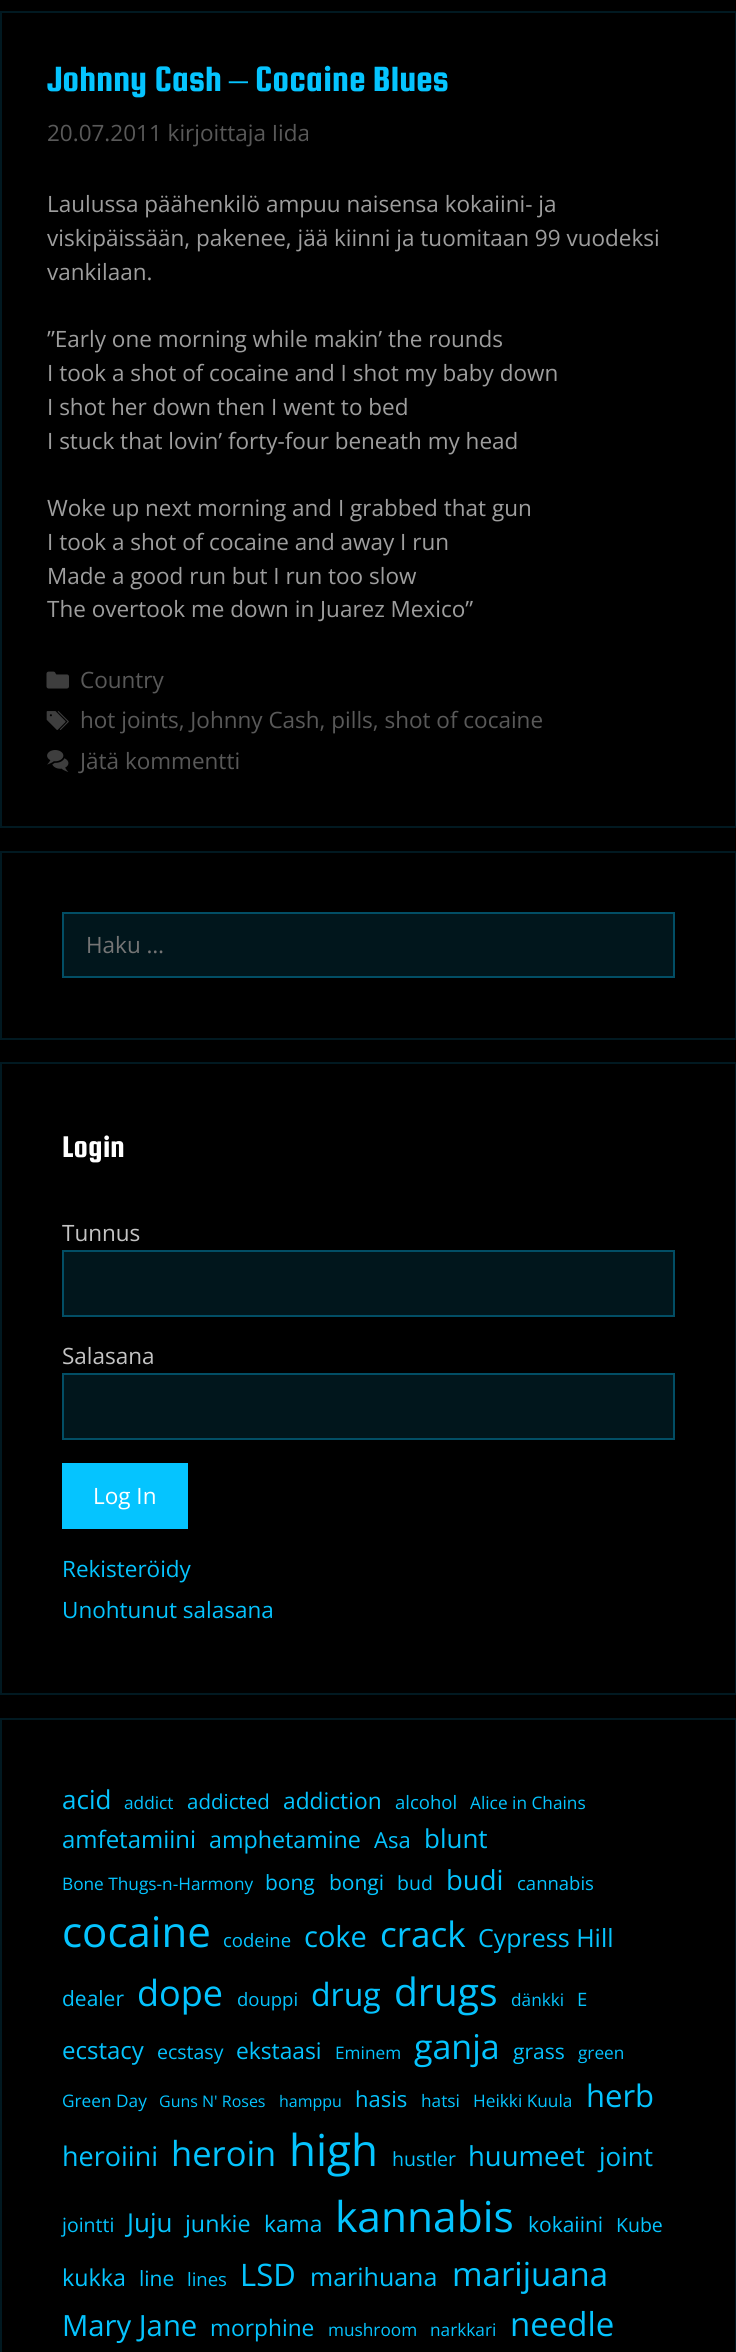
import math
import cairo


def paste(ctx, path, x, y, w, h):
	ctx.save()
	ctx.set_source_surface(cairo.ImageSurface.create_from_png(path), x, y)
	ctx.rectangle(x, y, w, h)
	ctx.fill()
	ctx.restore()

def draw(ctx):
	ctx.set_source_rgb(0, 0, 0)
	ctx.paint()
	ctx.rectangle(1, 12, 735, 815)
	ctx.set_source_rgb(0.004, 0.098, 0.129)
	ctx.stroke()
	ctx.select_font_face('Squada One')
	ctx.set_font_size(37.5)
	ctx.set_source_rgb(0.02, 0.769, 1)
	ctx.move_to(47, 91)
	ctx.show_text('Johnny Cash')
	ctx.select_font_face('Liberation Serif')
	ctx.move_to(229, 91)
	ctx.show_text('–')
	ctx.select_font_face('Squada One')
	ctx.move_to(255, 91)
	ctx.show_text('Cocaine Blues')
	ctx.select_font_face('Open Sans')
	ctx.set_font_size(22.5)
	ctx.set_source_rgb(0.349, 0.349, 0.349)
	ctx.move_to(47, 141)
	ctx.show_text('20.07.2011 kirjoittaja Iida')
	ctx.set_source_rgb(0.62, 0.62, 0.62)
	for x, y, s in [
		(47, 212, 'Laulussa päähenkilö ampuu naisensa kokaiini- ja'),
		(47, 246, 'viskipäissään, pakenee, jää kiinni ja tuomitaan 99 vuodeksi'),
		(47, 280, 'vankilaan.'),
		(47, 347, '”Early one morning while makin’ the rounds'),
		(47, 381, 'I took a shot of cocaine and I shot my baby down'),
		(47, 415, 'I shot her down then I went to bed'),
		(47, 449, 'I stuck that lovin’ forty-four beneath my head'),
		(47, 516, 'Woke up next morning and I grabbed that gun'),
		(47, 550, 'I took a shot of cocaine and away I run'),
		(47, 584, 'Made a good run but I run too slow'),
		(47, 617, 'The overtook me down in Juarez Mexico”'),
	]:
		ctx.move_to(x, y)
		ctx.show_text(s)
	paste(ctx, 'media/1.png', 46, 671, 23, 18)
	ctx.set_source_rgb(0.349, 0.349, 0.349)
	ctx.move_to(80, 688)
	ctx.show_text('Country')
	paste(ctx, 'media/2.png', 46, 711, 23, 19)
	ctx.move_to(80, 728)
	ctx.show_text('hot joints, Johnny Cash, pills, shot of cocaine')
	paste(ctx, 'media/3.png', 47, 750, 22, 22)
	ctx.move_to(80, 769)
	ctx.show_text('Jätä kommentti')
	ctx.rectangle(1, 852, 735, 187)
	ctx.set_source_rgb(0.004, 0.098, 0.129)
	ctx.stroke()
	ctx.set_source_rgb(0.004, 0.086, 0.11)
	ctx.rectangle(63, 913, 611, 64)
	ctx.fill_preserve()
	ctx.set_source_rgb(0.008, 0.306, 0.396)
	ctx.stroke()
	ctx.set_source_rgb(0.459, 0.459, 0.459)
	ctx.move_to(86, 953)
	ctx.show_text('Haku …')
	ctx.rectangle(1, 1063, 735, 631)
	ctx.set_source_rgb(0.004, 0.098, 0.129)
	ctx.stroke()
	ctx.select_font_face('Squada One')
	ctx.set_font_size(32)
	ctx.set_source_rgb(1, 1, 1)
	ctx.move_to(62, 1157)
	ctx.show_text('Login')
	ctx.select_font_face('Open Sans')
	ctx.set_font_size(22.5)
	ctx.set_source_rgb(0.769, 0.769, 0.769)
	ctx.move_to(62, 1241)
	ctx.show_text('Tunnus')
	ctx.set_source_rgb(0.004, 0.086, 0.11)
	ctx.rectangle(63, 1251, 611, 65)
	ctx.fill_preserve()
	ctx.set_source_rgb(0.008, 0.306, 0.396)
	ctx.stroke()
	ctx.set_source_rgb(0.769, 0.769, 0.769)
	ctx.move_to(62, 1364)
	ctx.show_text('Salasana')
	ctx.set_source_rgb(0.004, 0.086, 0.11)
	ctx.rectangle(63, 1374, 611, 65)
	ctx.fill_preserve()
	ctx.set_source_rgb(0.008, 0.306, 0.396)
	ctx.stroke()
	ctx.set_source_rgb(0.02, 0.769, 1)
	ctx.rectangle(62, 1463, 126, 66)
	ctx.fill()
	ctx.set_source_rgb(1, 1, 1)
	ctx.move_to(93, 1504)
	ctx.show_text('Log In')
	ctx.set_source_rgb(0.02, 0.769, 1)
	ctx.move_to(62, 1577)
	ctx.show_text('Rekisteröidy')
	ctx.move_to(62, 1618)
	ctx.show_text('Unohtunut salasana')
	ctx.rectangle(1, 1719, 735, 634)
	ctx.set_source_rgb(0.004, 0.098, 0.129)
	ctx.stroke()
	ctx.set_font_size(26)
	ctx.set_source_rgb(0.02, 0.769, 1)
	ctx.move_to(62, 1809)
	ctx.show_text('acid')
	ctx.set_font_size(17.25)
	ctx.move_to(124, 1809)
	ctx.show_text('addict')
	ctx.set_font_size(20.5)
	ctx.move_to(187, 1809)
	ctx.show_text('addicted')
	ctx.set_font_size(22.75)
	ctx.move_to(283, 1809)
	ctx.show_text('addiction')
	ctx.set_font_size(18.5)
	ctx.move_to(395, 1809)
	ctx.show_text('alcohol')
	ctx.set_font_size(17.25)
	ctx.move_to(470, 1809)
	ctx.show_text('Alice in Chains')
	ctx.set_font_size(24)
	ctx.move_to(62, 1848)
	ctx.show_text('amfetamiini')
	ctx.set_font_size(23.25)
	ctx.move_to(209, 1848)
	ctx.show_text('amphetamine')
	ctx.set_font_size(22)
	ctx.move_to(374, 1848)
	ctx.show_text('Asa')
	ctx.set_font_size(26)
	ctx.move_to(424, 1848)
	ctx.show_text('blunt')
	ctx.set_font_size(17.25)
	ctx.move_to(62, 1890)
	ctx.show_text('Bone Thugs-n-Harmony')
	ctx.set_font_size(21)
	ctx.move_to(265, 1890)
	ctx.show_text('bong')
	ctx.move_to(329, 1890)
	ctx.show_text('bongi')
	ctx.set_font_size(19.5)
	ctx.move_to(397, 1890)
	ctx.show_text('bud')
	ctx.set_font_size(27.5)
	ctx.move_to(446, 1890)
	ctx.show_text('budi')
	ctx.set_font_size(18.5)
	ctx.move_to(517, 1890)
	ctx.show_text('cannabis')
	ctx.set_font_size(42)
	ctx.move_to(62, 1947)
	ctx.show_text('cocaine')
	ctx.set_font_size(18.5)
	ctx.move_to(223, 1947)
	ctx.show_text('codeine')
	ctx.set_font_size(29)
	ctx.move_to(304, 1947)
	ctx.show_text('coke')
	ctx.set_font_size(35)
	ctx.move_to(380, 1947)
	ctx.show_text('crack')
	ctx.set_font_size(25)
	ctx.move_to(478, 1947)
	ctx.show_text('Cypress Hill')
	ctx.set_font_size(21)
	ctx.move_to(62, 2006)
	ctx.show_text('dealer')
	ctx.set_font_size(36)
	ctx.move_to(137, 2006)
	ctx.show_text('dope')
	ctx.set_font_size(18.5)
	ctx.move_to(237, 2006)
	ctx.show_text('douppi')
	ctx.set_font_size(32)
	ctx.move_to(311, 2006)
	ctx.show_text('drug')
	ctx.set_font_size(39)
	ctx.move_to(394, 2006)
	ctx.show_text('drugs')
	ctx.set_font_size(17.25)
	ctx.move_to(511, 2006)
	ctx.show_text('dänkki')
	ctx.set_font_size(18.5)
	ctx.move_to(577, 2006)
	ctx.show_text('E')
	ctx.set_font_size(24)
	ctx.move_to(62, 2059)
	ctx.show_text('ecstacy')
	ctx.set_font_size(19.5)
	ctx.move_to(157, 2059)
	ctx.show_text('ecstasy')
	ctx.set_font_size(22.75)
	ctx.move_to(236, 2059)
	ctx.show_text('ekstaasi')
	ctx.set_font_size(17.25)
	ctx.move_to(335, 2059)
	ctx.show_text('Eminem')
	ctx.set_font_size(34)
	ctx.move_to(414, 2059)
	ctx.show_text('ganja')
	ctx.set_font_size(21)
	ctx.move_to(513, 2059)
	ctx.show_text('grass')
	ctx.set_font_size(17.25)
	ctx.move_to(578, 2059)
	ctx.show_text('green')
	ctx.move_to(62, 2107)
	ctx.show_text('Green Day')
	ctx.set_font_size(16)
	ctx.move_to(159, 2107)
	ctx.show_text('Guns N\' Roses')
	ctx.move_to(279, 2107)
	ctx.show_text('hamppu')
	ctx.set_font_size(22)
	ctx.move_to(355, 2107)
	ctx.show_text('hasis')
	ctx.set_font_size(17.25)
	ctx.move_to(421, 2107)
	ctx.show_text('hatsi')
	ctx.move_to(473, 2107)
	ctx.show_text('Heikki Kuula')
	ctx.set_font_size(31)
	ctx.move_to(586, 2107)
	ctx.show_text('herb')
	ctx.set_font_size(27)
	ctx.move_to(62, 2166)
	ctx.show_text('heroiini')
	ctx.set_font_size(34.5)
	ctx.move_to(171, 2166)
	ctx.show_text('heroin')
	ctx.set_font_size(44)
	ctx.move_to(289, 2166)
	ctx.show_text('high')
	ctx.set_font_size(19.5)
	ctx.move_to(392, 2166)
	ctx.show_text('hustler')
	ctx.set_font_size(27.5)
	ctx.move_to(468, 2166)
	ctx.show_text('huumeet')
	ctx.set_font_size(26)
	ctx.move_to(599, 2166)
	ctx.show_text('joint')
	ctx.set_font_size(19.5)
	ctx.move_to(62, 2232)
	ctx.show_text('jointti')
	ctx.set_font_size(26)
	ctx.move_to(127, 2232)
	ctx.show_text('Juju')
	ctx.set_font_size(23.25)
	ctx.move_to(185, 2232)
	ctx.show_text('junkie')
	ctx.set_font_size(22.75)
	ctx.move_to(264, 2232)
	ctx.show_text('kama')
	ctx.set_font_size(42.5)
	ctx.move_to(335, 2232)
	ctx.show_text('kannabis')
	ctx.set_font_size(21)
	ctx.move_to(528, 2232)
	ctx.show_text('kokaiini')
	ctx.set_font_size(19.5)
	ctx.move_to(616, 2232)
	ctx.show_text('Kube')
	ctx.set_font_size(23.25)
	ctx.move_to(62, 2286)
	ctx.show_text('kukka')
	ctx.set_font_size(21)
	ctx.move_to(139, 2286)
	ctx.show_text('line')
	ctx.set_font_size(18.5)
	ctx.move_to(187, 2286)
	ctx.show_text('lines')
	ctx.set_font_size(31)
	ctx.move_to(240, 2286)
	ctx.show_text('LSD')
	ctx.set_font_size(25)
	ctx.move_to(310, 2286)
	ctx.show_text('marihuana')
	ctx.set_font_size(33)
	ctx.move_to(452, 2286)
	ctx.show_text('marijuana')
	ctx.set_font_size(29.25)
	ctx.move_to(62, 2336)
	ctx.show_text('Mary Jane')
	ctx.set_font_size(22.75)
	ctx.move_to(210, 2336)
	ctx.show_text('morphine')
	ctx.set_font_size(17.25)
	ctx.move_to(328, 2336)
	ctx.show_text('mushroom')
	ctx.move_to(430, 2336)
	ctx.show_text('narkkari')
	ctx.set_font_size(33)
	ctx.move_to(510, 2336)
	ctx.show_text('needle')


surface = cairo.ImageSurface(cairo.FORMAT_RGB24, 736, 2352)
ctx = cairo.Context(surface)
options = cairo.FontOptions()
options.set_hint_metrics(cairo.HINT_METRICS_OFF)
options.set_hint_style(cairo.HINT_STYLE_NONE)
ctx.set_font_options(options)
ctx.set_miter_limit(4)
draw(ctx)
surface.write_to_png('image.png')
